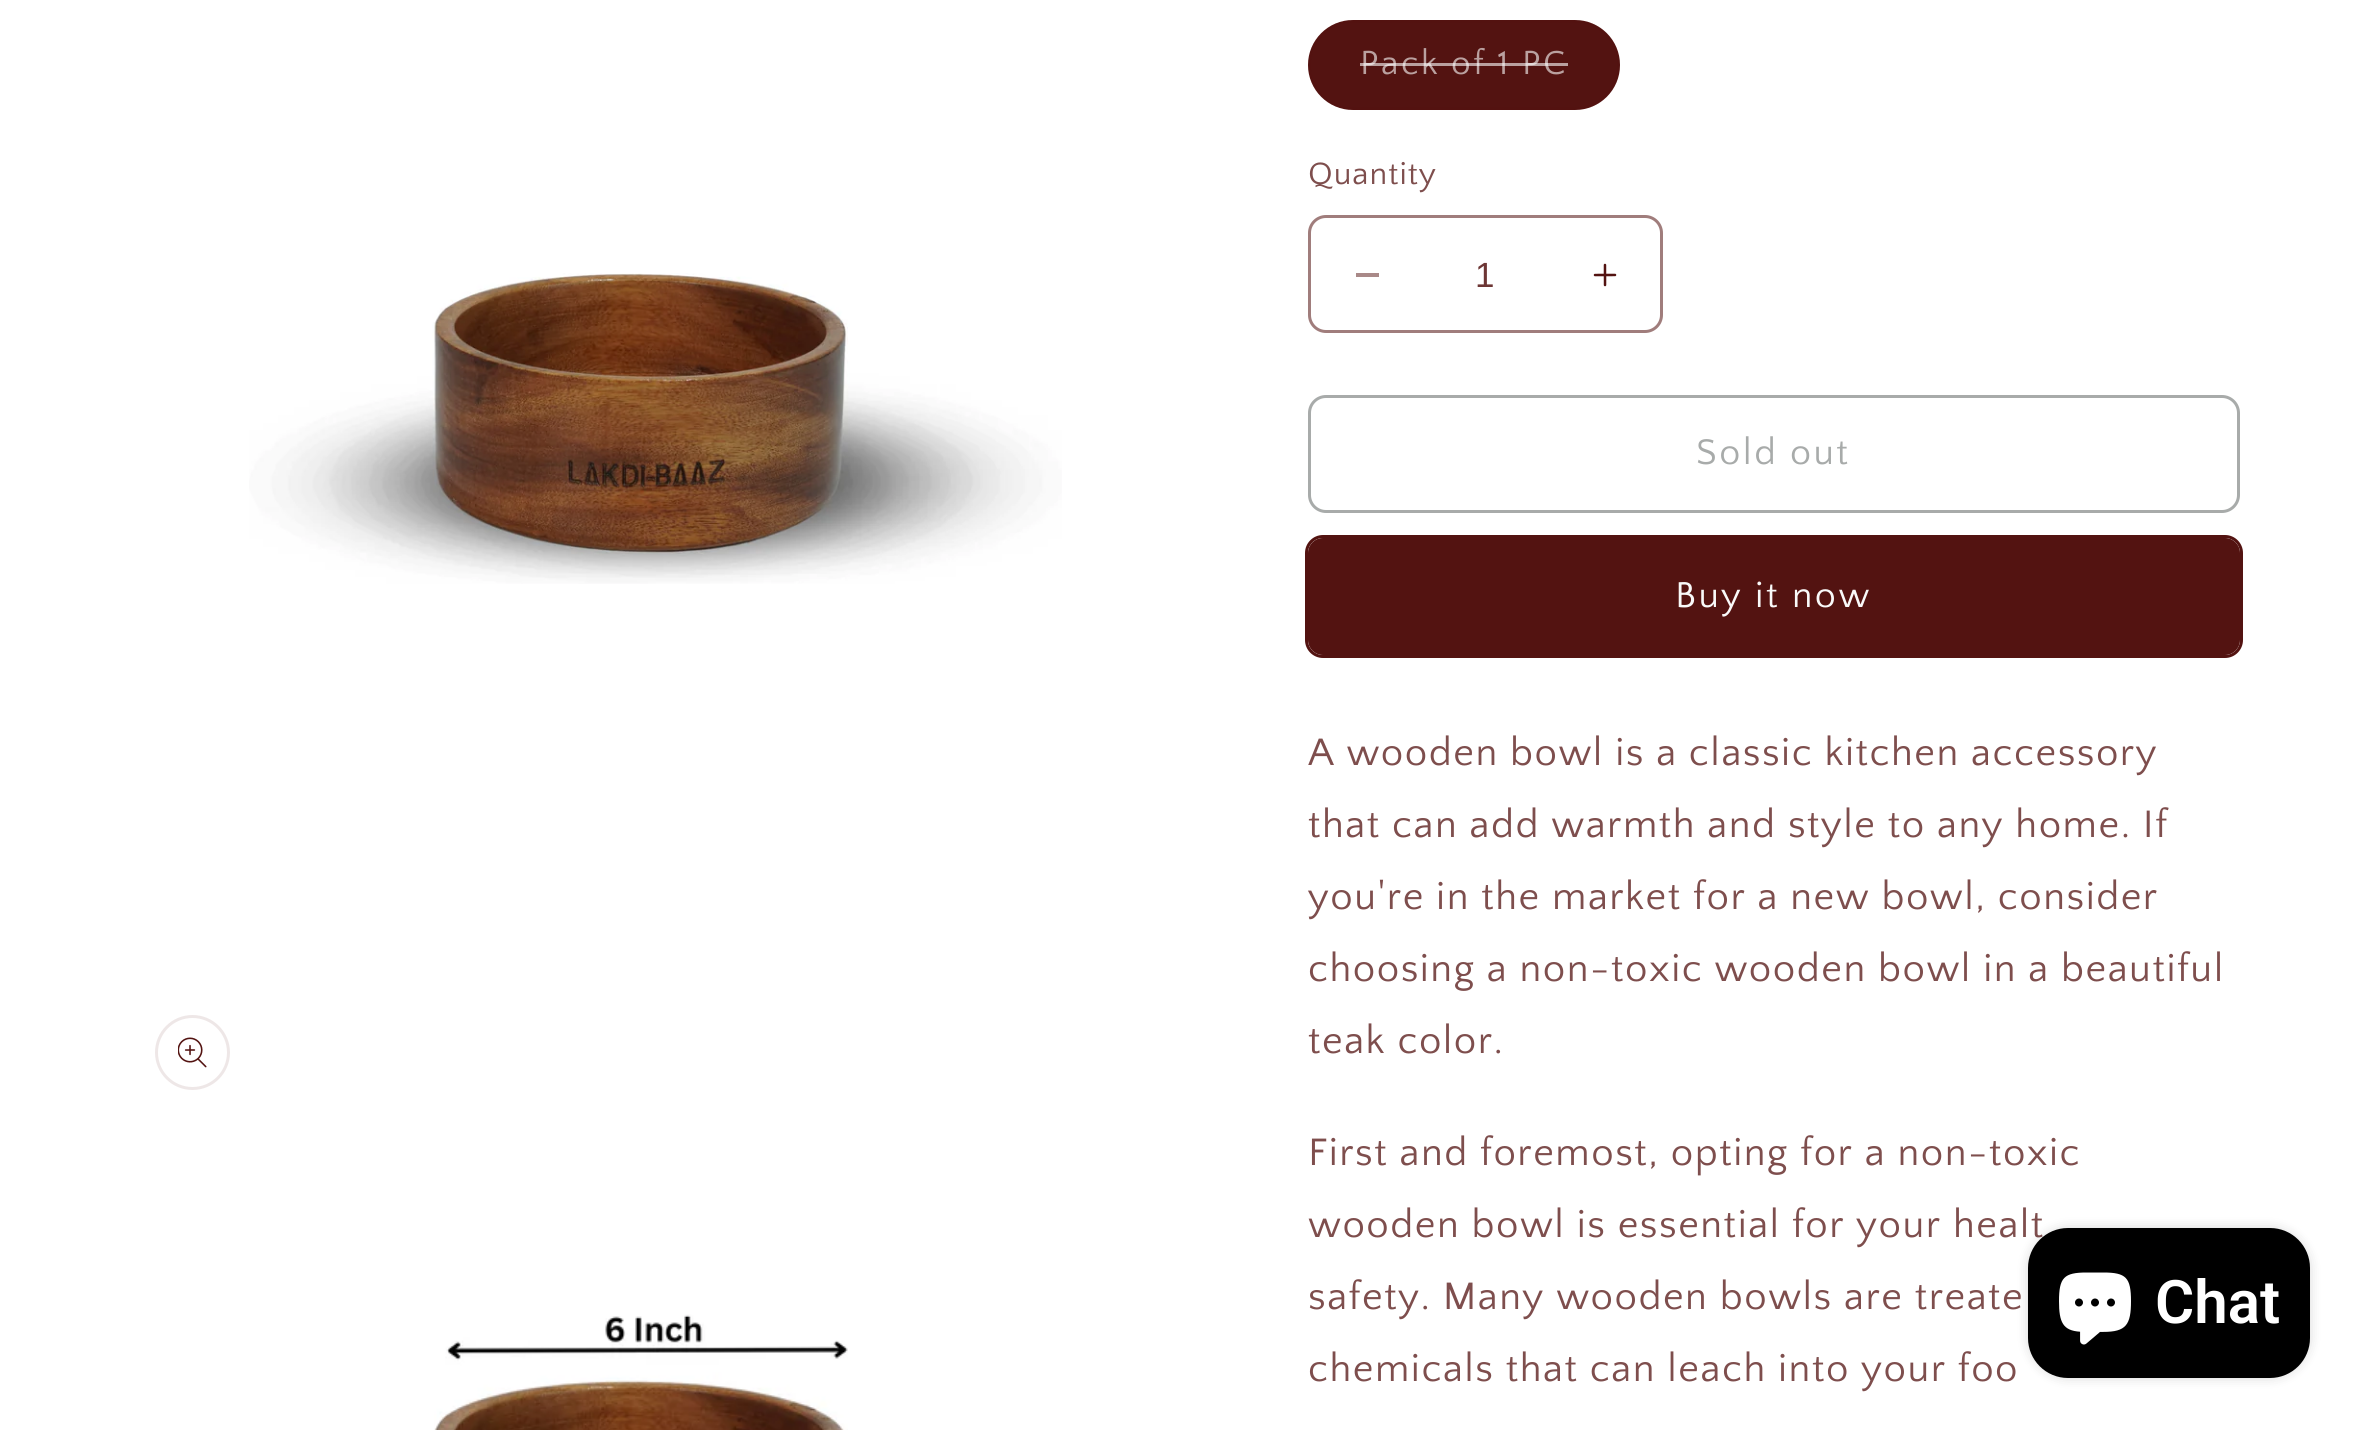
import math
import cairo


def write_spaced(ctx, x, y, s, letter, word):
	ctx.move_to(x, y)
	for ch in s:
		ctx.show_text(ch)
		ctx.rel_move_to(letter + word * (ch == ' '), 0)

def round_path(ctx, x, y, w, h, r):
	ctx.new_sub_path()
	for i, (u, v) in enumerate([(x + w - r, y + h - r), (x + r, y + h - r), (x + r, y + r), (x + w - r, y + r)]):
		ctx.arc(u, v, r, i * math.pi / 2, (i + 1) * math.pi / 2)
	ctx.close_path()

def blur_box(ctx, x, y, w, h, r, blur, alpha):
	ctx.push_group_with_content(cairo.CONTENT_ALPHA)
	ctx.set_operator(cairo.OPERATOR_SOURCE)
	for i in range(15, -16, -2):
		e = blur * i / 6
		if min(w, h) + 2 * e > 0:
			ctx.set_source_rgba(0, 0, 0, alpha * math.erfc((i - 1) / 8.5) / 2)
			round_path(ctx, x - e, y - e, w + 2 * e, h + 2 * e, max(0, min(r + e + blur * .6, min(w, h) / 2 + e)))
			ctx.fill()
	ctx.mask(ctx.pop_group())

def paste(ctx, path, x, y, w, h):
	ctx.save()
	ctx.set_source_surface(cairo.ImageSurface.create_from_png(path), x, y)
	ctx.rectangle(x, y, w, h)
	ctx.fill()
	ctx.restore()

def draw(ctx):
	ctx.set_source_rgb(1, 1, 1)
	ctx.paint()
	paste(ctx, 'media/1.png', 249, 273, 813, 311)
	ctx.arc(192.5, 1052.5, 36, 0, 2 * math.pi)
	ctx.set_source_rgb(0.933, 0.906, 0.906)
	ctx.set_line_width(3)
	ctx.stroke()
	paste(ctx, 'media/2.png', 178, 1037, 29, 31)
	paste(ctx, 'media/3.png', 434, 1314, 414, 116)
	ctx.set_source_rgb(0.325, 0.075, 0.067)
	round_path(ctx, 1308, 20, 312, 90, 45)
	ctx.fill()
	round_path(ctx, 1309.5, 21.5, 309, 87, 43.5)
	ctx.set_source_rgba(0.325, 0.075, 0.067, 0.1)
	ctx.stroke()
	ctx.select_font_face('Quattrocento Sans')
	ctx.set_font_size(35)
	ctx.set_source_rgb(0.729, 0.631, 0.627)
	write_spaced(ctx, 1360, 74, 'Pack of 1 PC', 2.5, 0)
	ctx.set_source_rgba(1, 1, 1, 0.6)
	ctx.rectangle(1360, 63, 208, 3)
	ctx.fill()
	ctx.set_font_size(32.5)
	ctx.set_source_rgb(0.494, 0.306, 0.302)
	write_spaced(ctx, 1308, 184, 'Quantity', 1, 0)
	ctx.set_source_rgb(0.663, 0.537, 0.533)
	ctx.rectangle(1356, 273, 23, 4)
	ctx.fill()
	paste(ctx, 'media/4.png', 1593, 263, 24, 24)
	round_path(ctx, 1309.5, 216.5, 352, 115, 16.5)
	ctx.set_source_rgb(0.627, 0.49, 0.486)
	ctx.stroke()
	ctx.select_font_face('Liberation Sans')
	ctx.set_font_size(35)
	ctx.set_source_rgb(0.427, 0.212, 0.208)
	ctx.move_to(1475, 287)
	ctx.show_text('1')
	round_path(ctx, 1309.5, 396.5, 929, 115, 16.5)
	ctx.set_source_rgb(0.659, 0.671, 0.667)
	ctx.stroke()
	ctx.select_font_face('Quattrocento Sans')
	ctx.set_font_size(37.5)
	write_spaced(ctx, 1696, 464, 'Sold out', 2.5, 0)
	round_path(ctx, 1306.5, 536.5, 935, 120, 16.5)
	ctx.set_source_rgb(0.325, 0.075, 0.067)
	ctx.stroke()
	round_path(ctx, 1308, 538, 932, 117, 15)
	ctx.fill()
	ctx.set_source_rgb(0.976, 0.976, 0.976)
	write_spaced(ctx, 1675, 607, 'Buy it now', 2.5, 0)
	ctx.set_font_size(40)
	ctx.set_source_rgb(0.494, 0.306, 0.302)
	for x, y, s in [
		(1308, 765, 'A wooden bowl is a classic kitchen accessory'),
		(1308, 837, 'that can add warmth and style to any home. If'),
		(1308, 909, 'you\'re in the market for a new bowl, consider'),
		(1308, 981, 'choosing a non-toxic wooden bowl in a beautiful'),
		(1308, 1053, 'teak color.'),
		(1308, 1165, 'First and foremost, opting for a non-toxic'),
		(1308, 1237, 'wooden bowl is essential for your healt'),
		(1308, 1309, 'safety. Many wooden bowls are treate'),
		(1308, 1381, 'chemicals that can leach into your foo'),
	]:
		write_spaced(ctx, x, y, s, 1.5, 0)
	ctx.set_source_rgb(0, 0, 0)
	blur_box(ctx, 2028, 1228, 282, 150, 40, 6, 0.15)
	ctx.set_source_rgb(0, 0, 0)
	round_path(ctx, 2028, 1228, 282, 150, 40)
	ctx.fill()
	paste(ctx, 'media/5.png', 2059, 1272, 72, 73)
	ctx.select_font_face('Roboto SemiBold')
	ctx.set_font_size(60)
	ctx.set_source_rgb(1, 1, 1)
	ctx.move_to(2155, 1323)
	ctx.show_text('Chat')


surface = cairo.ImageSurface(cairo.FORMAT_RGB24, 2364, 1430)
ctx = cairo.Context(surface)
options = cairo.FontOptions()
options.set_hint_metrics(cairo.HINT_METRICS_OFF)
options.set_hint_style(cairo.HINT_STYLE_NONE)
ctx.set_font_options(options)
ctx.set_miter_limit(4)
draw(ctx)
surface.write_to_png('image.png')
